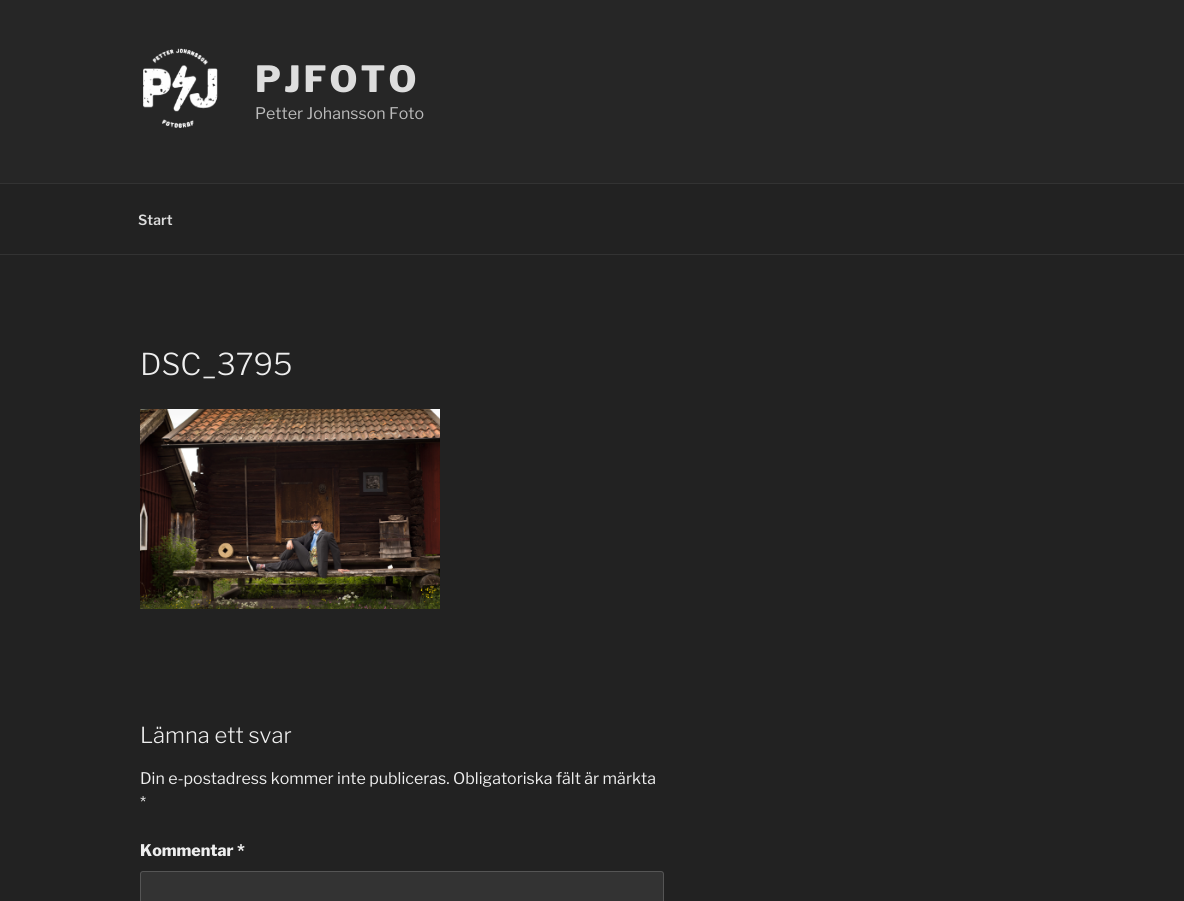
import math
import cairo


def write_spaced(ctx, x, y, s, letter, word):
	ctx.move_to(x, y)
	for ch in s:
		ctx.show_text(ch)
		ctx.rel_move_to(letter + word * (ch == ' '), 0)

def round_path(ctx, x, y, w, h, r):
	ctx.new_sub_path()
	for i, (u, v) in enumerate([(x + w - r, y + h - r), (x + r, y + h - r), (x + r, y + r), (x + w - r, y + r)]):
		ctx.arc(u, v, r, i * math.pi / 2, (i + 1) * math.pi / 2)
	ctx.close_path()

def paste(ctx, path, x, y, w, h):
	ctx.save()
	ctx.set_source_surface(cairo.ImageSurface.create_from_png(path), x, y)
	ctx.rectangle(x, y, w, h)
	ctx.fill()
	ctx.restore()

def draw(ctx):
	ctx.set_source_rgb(0.133, 0.133, 0.133)
	ctx.paint()
	ctx.set_source_rgb(0.149, 0.149, 0.149)
	ctx.rectangle(0, 0, 1184, 183)
	ctx.fill()
	paste(ctx, 'media/1.png', 143, 48, 75, 80)
	ctx.select_font_face('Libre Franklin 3 Thin')
	ctx.set_font_size(36)
	ctx.set_source_rgb(0.867, 0.867, 0.867)
	write_spaced(ctx, 255, 92, 'PJFOTO', 3, 0)
	ctx.select_font_face('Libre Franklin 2 Thin')
	ctx.set_font_size(16)
	ctx.set_source_rgb(0.733, 0.733, 0.733)
	ctx.move_to(255, 119)
	ctx.show_text('Petter Johansson Foto')
	ctx.set_source_rgb(0.2, 0.2, 0.2)
	ctx.rectangle(0, 183, 1184, 1)
	ctx.fill()
	ctx.rectangle(0, 254, 1184, 1)
	ctx.fill()
	ctx.select_font_face('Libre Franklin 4 Thin')
	ctx.set_font_size(14)
	ctx.set_source_rgb(0.867, 0.867, 0.867)
	ctx.move_to(138, 225)
	ctx.show_text('Start')
	ctx.select_font_face('Libre Franklin Thin')
	ctx.set_font_size(30)
	ctx.set_source_rgb(0.933, 0.933, 0.933)
	ctx.move_to(140, 375)
	ctx.show_text('DSC_3795')
	paste(ctx, 'media/2.png', 140, 409, 300, 200)
	ctx.set_font_size(22)
	ctx.move_to(140, 743)
	ctx.show_text('Lämna ett svar')
	ctx.select_font_face('Libre Franklin 2 Thin')
	ctx.set_font_size(16)
	ctx.move_to(140, 784)
	ctx.show_text('Din e-postadress kommer inte publiceras. Obligatoriska fält är märkta')
	ctx.move_to(140, 808)
	ctx.show_text('*')
	ctx.select_font_face('Libre Franklin 3 Thin')
	ctx.move_to(140, 856)
	ctx.show_text('Kommentar *')
	ctx.set_source_rgb(0.2, 0.2, 0.2)
	round_path(ctx, 140.5, 871.5, 523, 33, 2.5)
	ctx.fill_preserve()
	ctx.set_source_rgb(0.333, 0.333, 0.333)
	ctx.set_line_width(1)
	ctx.stroke()


surface = cairo.ImageSurface(cairo.FORMAT_RGB24, 1184, 901)
ctx = cairo.Context(surface)
options = cairo.FontOptions()
options.set_hint_metrics(cairo.HINT_METRICS_OFF)
options.set_hint_style(cairo.HINT_STYLE_NONE)
ctx.set_font_options(options)
ctx.set_miter_limit(4)
draw(ctx)
surface.write_to_png('image.png')
